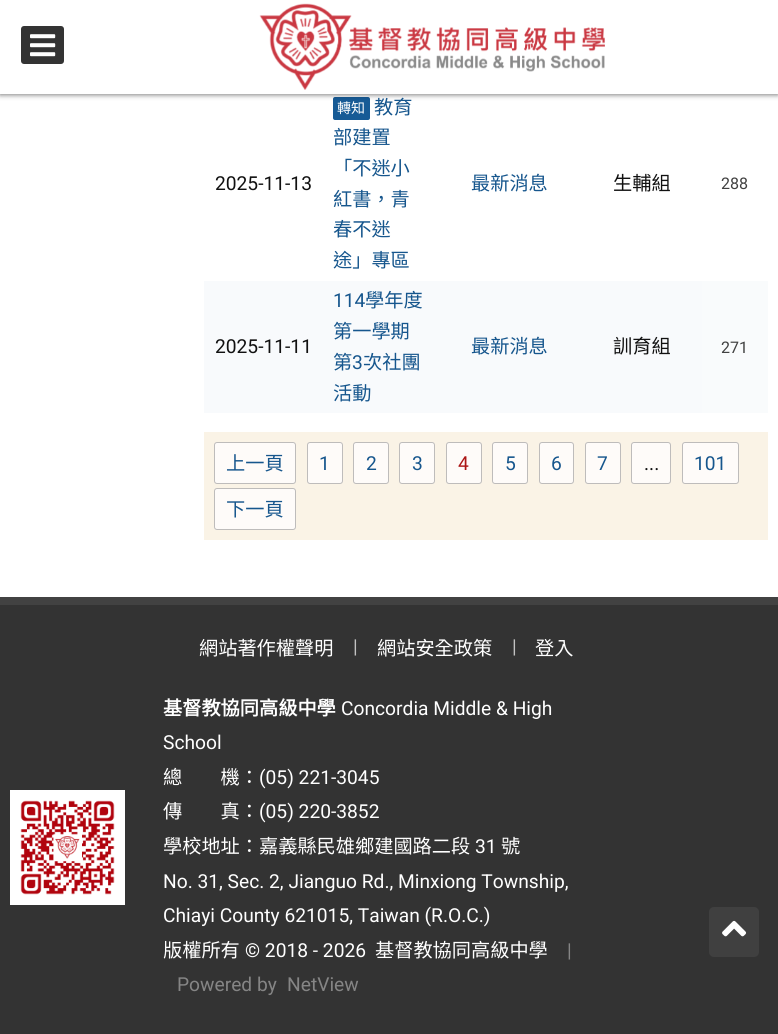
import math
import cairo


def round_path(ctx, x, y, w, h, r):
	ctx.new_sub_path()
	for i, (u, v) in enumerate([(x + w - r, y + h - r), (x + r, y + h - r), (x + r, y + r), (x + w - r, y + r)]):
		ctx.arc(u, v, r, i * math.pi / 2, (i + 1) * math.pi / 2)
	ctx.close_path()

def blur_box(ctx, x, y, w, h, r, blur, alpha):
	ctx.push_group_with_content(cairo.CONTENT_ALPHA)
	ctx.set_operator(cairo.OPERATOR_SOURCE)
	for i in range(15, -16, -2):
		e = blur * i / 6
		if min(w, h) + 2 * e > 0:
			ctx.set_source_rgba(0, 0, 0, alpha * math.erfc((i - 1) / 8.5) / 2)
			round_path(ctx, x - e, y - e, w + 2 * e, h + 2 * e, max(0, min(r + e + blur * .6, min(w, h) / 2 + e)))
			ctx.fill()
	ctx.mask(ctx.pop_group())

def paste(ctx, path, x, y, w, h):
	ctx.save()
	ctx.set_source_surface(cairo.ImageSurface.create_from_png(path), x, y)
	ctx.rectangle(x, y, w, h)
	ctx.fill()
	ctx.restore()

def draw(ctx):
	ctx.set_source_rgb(1, 1, 1)
	ctx.paint()
	ctx.set_source_rgb(0.09, 0.357, 0.588)
	round_path(ctx, 333, 97, 37, 23, 2)
	ctx.fill()
	ctx.set_source_rgb(0, 0, 0)
	blur_box(ctx, 0, 1, 778, 94, 0, 2.5, 0.5)
	ctx.set_source_rgb(1, 1, 1)
	ctx.rectangle(0, 0, 778, 94)
	ctx.fill()
	ctx.set_source_rgb(0.2, 0.2, 0.2)
	round_path(ctx, 21, 26, 43, 38, 3)
	ctx.fill()
	paste(ctx, 'media/1.png', 30, 34, 26, 23)
	paste(ctx, 'media/2.png', 259, 3, 346, 87)
	ctx.select_font_face('Roboto')
	ctx.set_font_size(19.2)
	ctx.set_source_rgb(0.067, 0.067, 0.067)
	ctx.move_to(215, 190)
	ctx.show_text('2025-11-13')
	ctx.select_font_face('Noto Sans CJK TC')
	ctx.set_font_size(14)
	ctx.set_source_rgb(1, 1, 1)
	ctx.move_to(337, 113)
	ctx.show_text('轉知')
	ctx.set_font_size(19.2)
	ctx.set_source_rgb(0.086, 0.337, 0.553)
	for x, y, s in [
		(374, 114, '教育'),
		(333, 144, '部建置'),
		(333, 175, '「不迷小'),
		(333, 206, '紅書，青'),
		(333, 236, '春不迷'),
		(333, 267, '途」專區'),
		(471, 190, '最新消息'),
	]:
		ctx.move_to(x, y)
		ctx.show_text(s)
	ctx.set_source_rgb(0.067, 0.067, 0.067)
	ctx.move_to(613, 190)
	ctx.show_text('生輔組')
	ctx.select_font_face('Roboto')
	ctx.set_font_size(16)
	ctx.set_source_rgb(0.255, 0.255, 0.255)
	ctx.move_to(721, 189)
	ctx.show_text('288')
	ctx.set_source_rgb(0.969, 0.98, 0.988)
	ctx.rectangle(204, 281, 498, 132)
	ctx.fill()
	ctx.set_font_size(19.2)
	ctx.set_source_rgb(0.067, 0.067, 0.067)
	ctx.move_to(215, 353)
	ctx.show_text('2025-11-11')
	ctx.set_source_rgb(0.086, 0.337, 0.553)
	ctx.move_to(333, 307)
	ctx.show_text('114')
	ctx.select_font_face('Noto Sans CJK TC')
	for x, y, s in [
		(365, 307, '學年度'),
		(333, 338, '第一學期'),
		(333, 369, '第'),
	]:
		ctx.move_to(x, y)
		ctx.show_text(s)
	ctx.select_font_face('Roboto')
	ctx.move_to(352, 369)
	ctx.show_text('3')
	ctx.select_font_face('Noto Sans CJK TC')
	for x, y, s in [
		(363, 369, '次社團'),
		(333, 400, '活動'),
		(471, 353, '最新消息'),
	]:
		ctx.move_to(x, y)
		ctx.show_text(s)
	ctx.set_source_rgb(0.067, 0.067, 0.067)
	ctx.move_to(613, 353)
	ctx.show_text('訓育組')
	ctx.set_source_rgb(0.976, 0.984, 0.988)
	ctx.rectangle(702, 281, 66, 132)
	ctx.fill()
	ctx.select_font_face('Roboto')
	ctx.set_font_size(16)
	ctx.set_source_rgb(0.255, 0.255, 0.255)
	ctx.move_to(721, 353)
	ctx.show_text('271')
	ctx.set_source_rgb(0.98, 0.953, 0.902)
	ctx.rectangle(204, 432, 564, 108)
	ctx.fill()
	ctx.set_source_rgb(0.996, 0.984, 0.973)
	round_path(ctx, 214, 442, 82, 42, 3)
	ctx.fill()
	round_path(ctx, 214.5, 442.5, 81, 41, 2.5)
	ctx.set_source_rgba(0.498, 0.498, 0.498, 0.5)
	ctx.set_line_width(1)
	ctx.stroke()
	ctx.select_font_face('Noto Sans CJK TC')
	ctx.set_font_size(19.2)
	ctx.set_source_rgb(0.086, 0.337, 0.553)
	ctx.move_to(226, 470)
	ctx.show_text('上一頁')
	ctx.set_source_rgb(0.996, 0.984, 0.973)
	round_path(ctx, 307, 442, 36, 42, 3)
	ctx.fill()
	round_path(ctx, 307.5, 442.5, 35, 41, 2.5)
	ctx.set_source_rgba(0.498, 0.498, 0.498, 0.5)
	ctx.stroke()
	ctx.select_font_face('Roboto')
	ctx.set_source_rgb(0.086, 0.337, 0.553)
	ctx.move_to(319, 470)
	ctx.show_text('1')
	ctx.set_source_rgb(0.996, 0.984, 0.973)
	round_path(ctx, 353, 442, 36, 42, 3)
	ctx.fill()
	round_path(ctx, 353.5, 442.5, 35, 41, 2.5)
	ctx.set_source_rgba(0.498, 0.498, 0.498, 0.5)
	ctx.stroke()
	ctx.set_source_rgb(0.086, 0.337, 0.553)
	ctx.move_to(366, 470)
	ctx.show_text('2')
	ctx.set_source_rgb(0.996, 0.984, 0.973)
	round_path(ctx, 399, 442, 36, 42, 3)
	ctx.fill()
	round_path(ctx, 399.5, 442.5, 35, 41, 2.5)
	ctx.set_source_rgba(0.498, 0.498, 0.498, 0.5)
	ctx.stroke()
	ctx.set_source_rgb(0.086, 0.337, 0.553)
	ctx.move_to(412, 470)
	ctx.show_text('3')
	ctx.set_source_rgb(0.996, 0.984, 0.973)
	round_path(ctx, 446, 442, 36, 42, 3)
	ctx.fill()
	round_path(ctx, 446.5, 442.5, 35, 41, 2.5)
	ctx.set_source_rgba(0.498, 0.498, 0.498, 0.5)
	ctx.stroke()
	ctx.set_source_rgb(0.675, 0.086, 0.086)
	ctx.move_to(458, 470)
	ctx.show_text('4')
	ctx.set_source_rgb(0.996, 0.984, 0.973)
	round_path(ctx, 492, 442, 36, 42, 3)
	ctx.fill()
	round_path(ctx, 492.5, 442.5, 35, 41, 2.5)
	ctx.set_source_rgba(0.498, 0.498, 0.498, 0.5)
	ctx.stroke()
	ctx.set_source_rgb(0.086, 0.337, 0.553)
	ctx.move_to(505, 470)
	ctx.show_text('5')
	ctx.set_source_rgb(0.996, 0.984, 0.973)
	round_path(ctx, 539, 442, 35, 42, 3)
	ctx.fill()
	round_path(ctx, 539.5, 442.5, 34, 41, 2.5)
	ctx.set_source_rgba(0.498, 0.498, 0.498, 0.5)
	ctx.stroke()
	ctx.set_source_rgb(0.086, 0.337, 0.553)
	ctx.move_to(551, 470)
	ctx.show_text('6')
	ctx.set_source_rgb(0.996, 0.984, 0.973)
	round_path(ctx, 585, 442, 36, 42, 3)
	ctx.fill()
	round_path(ctx, 585.5, 442.5, 35, 41, 2.5)
	ctx.set_source_rgba(0.498, 0.498, 0.498, 0.5)
	ctx.stroke()
	ctx.set_source_rgb(0.086, 0.337, 0.553)
	ctx.move_to(597, 470)
	ctx.show_text('7')
	ctx.set_source_rgb(0.996, 0.984, 0.973)
	round_path(ctx, 631, 442, 40, 42, 3)
	ctx.fill()
	round_path(ctx, 631.5, 442.5, 39, 41, 2.5)
	ctx.set_source_rgba(0.498, 0.498, 0.498, 0.5)
	ctx.stroke()
	ctx.set_source_rgb(0.067, 0.067, 0.067)
	ctx.move_to(644, 470)
	ctx.show_text('...')
	ctx.set_source_rgb(0.996, 0.984, 0.973)
	round_path(ctx, 682, 442, 57, 42, 3)
	ctx.fill()
	round_path(ctx, 682.5, 442.5, 56, 41, 2.5)
	ctx.set_source_rgba(0.498, 0.498, 0.498, 0.5)
	ctx.stroke()
	ctx.set_source_rgb(0.086, 0.337, 0.553)
	ctx.move_to(694, 470)
	ctx.show_text('101')
	ctx.set_source_rgb(0.996, 0.984, 0.973)
	round_path(ctx, 214, 488, 82, 42, 3)
	ctx.fill()
	round_path(ctx, 214.5, 488.5, 81, 41, 2.5)
	ctx.set_source_rgba(0.498, 0.498, 0.498, 0.5)
	ctx.stroke()
	ctx.select_font_face('Noto Sans CJK TC')
	ctx.set_source_rgb(0.086, 0.337, 0.553)
	ctx.move_to(226, 516)
	ctx.show_text('下一頁')
	ctx.set_source_rgb(0.2, 0.2, 0.2)
	ctx.rectangle(0, 605, 778, 429)
	ctx.fill()
	ctx.set_source_rgb(0.259, 0.259, 0.259)
	ctx.rectangle(0, 597, 778, 8)
	ctx.fill()
	ctx.set_source_rgb(1, 1, 1)
	ctx.move_to(199, 655)
	ctx.show_text('網站著作權聲明')
	ctx.select_font_face('Roboto')
	ctx.set_source_rgb(0.761, 0.761, 0.761)
	ctx.move_to(353, 653)
	ctx.show_text('|')
	ctx.select_font_face('Noto Sans CJK TC')
	ctx.set_source_rgb(1, 1, 1)
	ctx.move_to(377, 655)
	ctx.show_text('網站安全政策')
	ctx.select_font_face('Roboto')
	ctx.set_source_rgb(0.761, 0.761, 0.761)
	ctx.move_to(512, 653)
	ctx.show_text('|')
	ctx.select_font_face('Noto Sans CJK TC')
	ctx.set_source_rgb(1, 1, 1)
	ctx.move_to(535, 655)
	ctx.show_text('登入')
	paste(ctx, 'media/3.png', 10, 790, 115, 115)
	ctx.select_font_face('Noto Sans CJK TC', cairo.FONT_SLANT_NORMAL, cairo.FONT_WEIGHT_BOLD)
	ctx.move_to(163, 715)
	ctx.show_text('基督教協同高級中學')
	ctx.select_font_face('Roboto')
	ctx.move_to(341, 715)
	ctx.show_text('Concordia Middle & High')
	ctx.move_to(163, 749)
	ctx.show_text('School')
	ctx.select_font_face('Noto Sans CJK TC')
	ctx.move_to(163, 784)
	ctx.show_text('總　　機：')
	ctx.select_font_face('Roboto')
	ctx.move_to(259, 784)
	ctx.show_text('(05) 221-3045')
	ctx.select_font_face('Noto Sans CJK TC')
	ctx.move_to(163, 818)
	ctx.show_text('傳　　真：')
	ctx.select_font_face('Roboto')
	ctx.move_to(259, 818)
	ctx.show_text('(05) 220-3852')
	ctx.select_font_face('Noto Sans CJK TC')
	ctx.move_to(163, 853)
	ctx.show_text('學校地址：嘉義縣民雄鄉建國路二段')
	ctx.select_font_face('Roboto')
	ctx.move_to(475, 853)
	ctx.show_text('31')
	ctx.select_font_face('Noto Sans CJK TC')
	ctx.move_to(501, 853)
	ctx.show_text('號')
	ctx.select_font_face('Roboto')
	ctx.move_to(163, 888)
	ctx.show_text('No. 31, Sec. 2, Jianguo Rd., Minxiong Township,')
	ctx.move_to(163, 922)
	ctx.show_text('Chiayi County 621015, Taiwan (R.O.C.)')
	ctx.select_font_face('Noto Sans CJK TC')
	ctx.move_to(163, 957)
	ctx.show_text('版權所有')
	ctx.select_font_face('Roboto')
	ctx.move_to(245, 957)
	ctx.show_text('© 2018 - 2026')
	ctx.select_font_face('Noto Sans CJK TC')
	ctx.move_to(375, 957)
	ctx.show_text('基督教協同高級中學')
	ctx.select_font_face('Roboto')
	ctx.set_source_rgb(0.522, 0.522, 0.522)
	for x, y, s in [
		(567, 957, '|'),
		(177, 991, 'Powered by'),
		(287, 991, 'NetView'),
	]:
		ctx.move_to(x, y)
		ctx.show_text(s)
	ctx.set_source_rgb(0.251, 0.251, 0.251)
	round_path(ctx, 709, 907, 50, 50, 5)
	ctx.fill()
	paste(ctx, 'media/4.png', 722, 920, 25, 17)


surface = cairo.ImageSurface(cairo.FORMAT_RGB24, 778, 1034)
ctx = cairo.Context(surface)
options = cairo.FontOptions()
options.set_hint_metrics(cairo.HINT_METRICS_OFF)
options.set_hint_style(cairo.HINT_STYLE_NONE)
ctx.set_font_options(options)
ctx.set_miter_limit(4)
draw(ctx)
surface.write_to_png('image.png')
